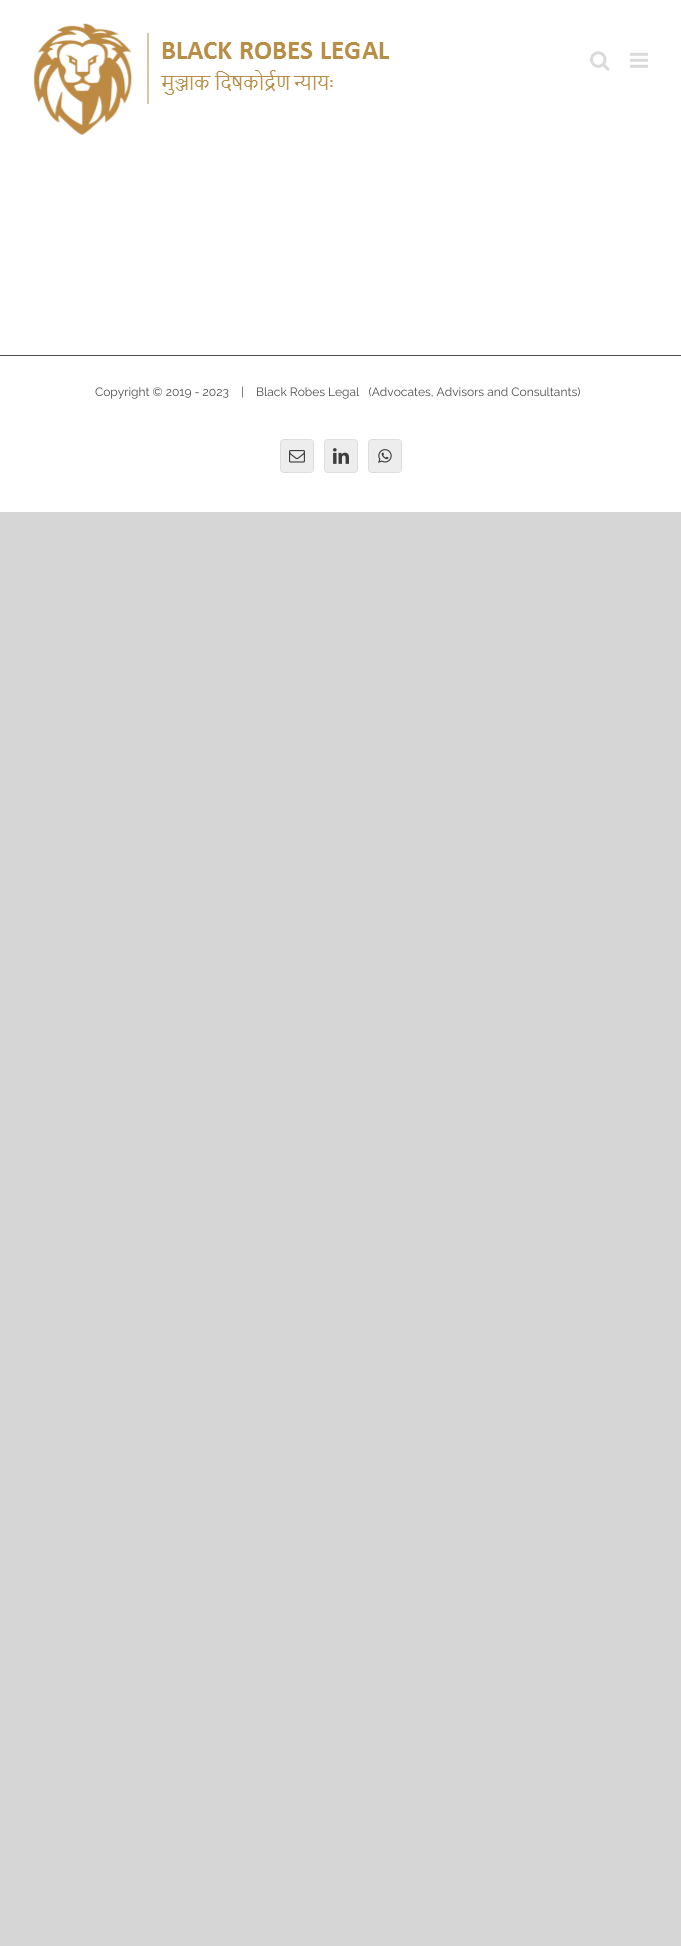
import math
import cairo


def round_path(ctx, x, y, w, h, r):
	ctx.new_sub_path()
	for i, (u, v) in enumerate([(x + w - r, y + h - r), (x + r, y + h - r), (x + r, y + r), (x + w - r, y + r)]):
		ctx.arc(u, v, r, i * math.pi / 2, (i + 1) * math.pi / 2)
	ctx.close_path()

def paste(ctx, path, x, y, w, h):
	ctx.save()
	ctx.set_source_surface(cairo.ImageSurface.create_from_png(path), x, y)
	ctx.rectangle(x, y, w, h)
	ctx.fill()
	ctx.restore()

def draw(ctx):
	ctx.set_source_rgb(0.843, 0.839, 0.839)
	ctx.paint()
	ctx.set_source_rgb(1, 1, 1)
	ctx.rectangle(0, 0, 681, 512)
	ctx.fill()
	paste(ctx, 'media/1.png', 33, 23, 357, 112)
	paste(ctx, 'media/2.png', 590, 51, 20, 20)
	paste(ctx, 'media/3.png', 630, 52, 18, 16)
	ctx.set_source_rgb(0.294, 0.298, 0.302)
	ctx.rectangle(0, 355, 681, 1)
	ctx.fill()
	ctx.select_font_face('Raleway')
	ctx.set_font_size(12)
	ctx.set_source_rgb(0.298, 0.298, 0.298)
	ctx.move_to(95, 396)
	ctx.show_text('Copyright © 2019 - 2023    |')
	ctx.move_to(256, 396)
	ctx.show_text('Black Robes Legal   (Advocates, Advisors and Consultants)')
	ctx.set_source_rgb(0.929, 0.929, 0.929)
	round_path(ctx, 280, 439, 34, 34, 4)
	ctx.fill()
	round_path(ctx, 280.5, 439.5, 33, 33, 3.5)
	ctx.set_source_rgba(0.459, 0.459, 0.459, 0.13)
	ctx.set_line_width(1)
	ctx.stroke()
	paste(ctx, 'media/4.png', 289, 450, 16, 13)
	ctx.set_source_rgb(0.929, 0.929, 0.929)
	round_path(ctx, 324, 439, 34, 34, 4)
	ctx.fill()
	round_path(ctx, 324.5, 439.5, 33, 33, 3.5)
	ctx.set_source_rgba(0.459, 0.459, 0.459, 0.13)
	ctx.stroke()
	paste(ctx, 'media/5.png', 333, 448, 16, 16)
	ctx.set_source_rgb(0.929, 0.929, 0.929)
	round_path(ctx, 368, 439, 34, 34, 4)
	ctx.fill()
	round_path(ctx, 368.5, 439.5, 33, 33, 3.5)
	ctx.set_source_rgba(0.459, 0.459, 0.459, 0.13)
	ctx.stroke()
	paste(ctx, 'media/6.png', 378, 449, 14, 14)


surface = cairo.ImageSurface(cairo.FORMAT_RGB24, 681, 1946)
ctx = cairo.Context(surface)
options = cairo.FontOptions()
options.set_hint_metrics(cairo.HINT_METRICS_OFF)
options.set_hint_style(cairo.HINT_STYLE_NONE)
ctx.set_font_options(options)
ctx.set_miter_limit(4)
draw(ctx)
surface.write_to_png('image.png')
